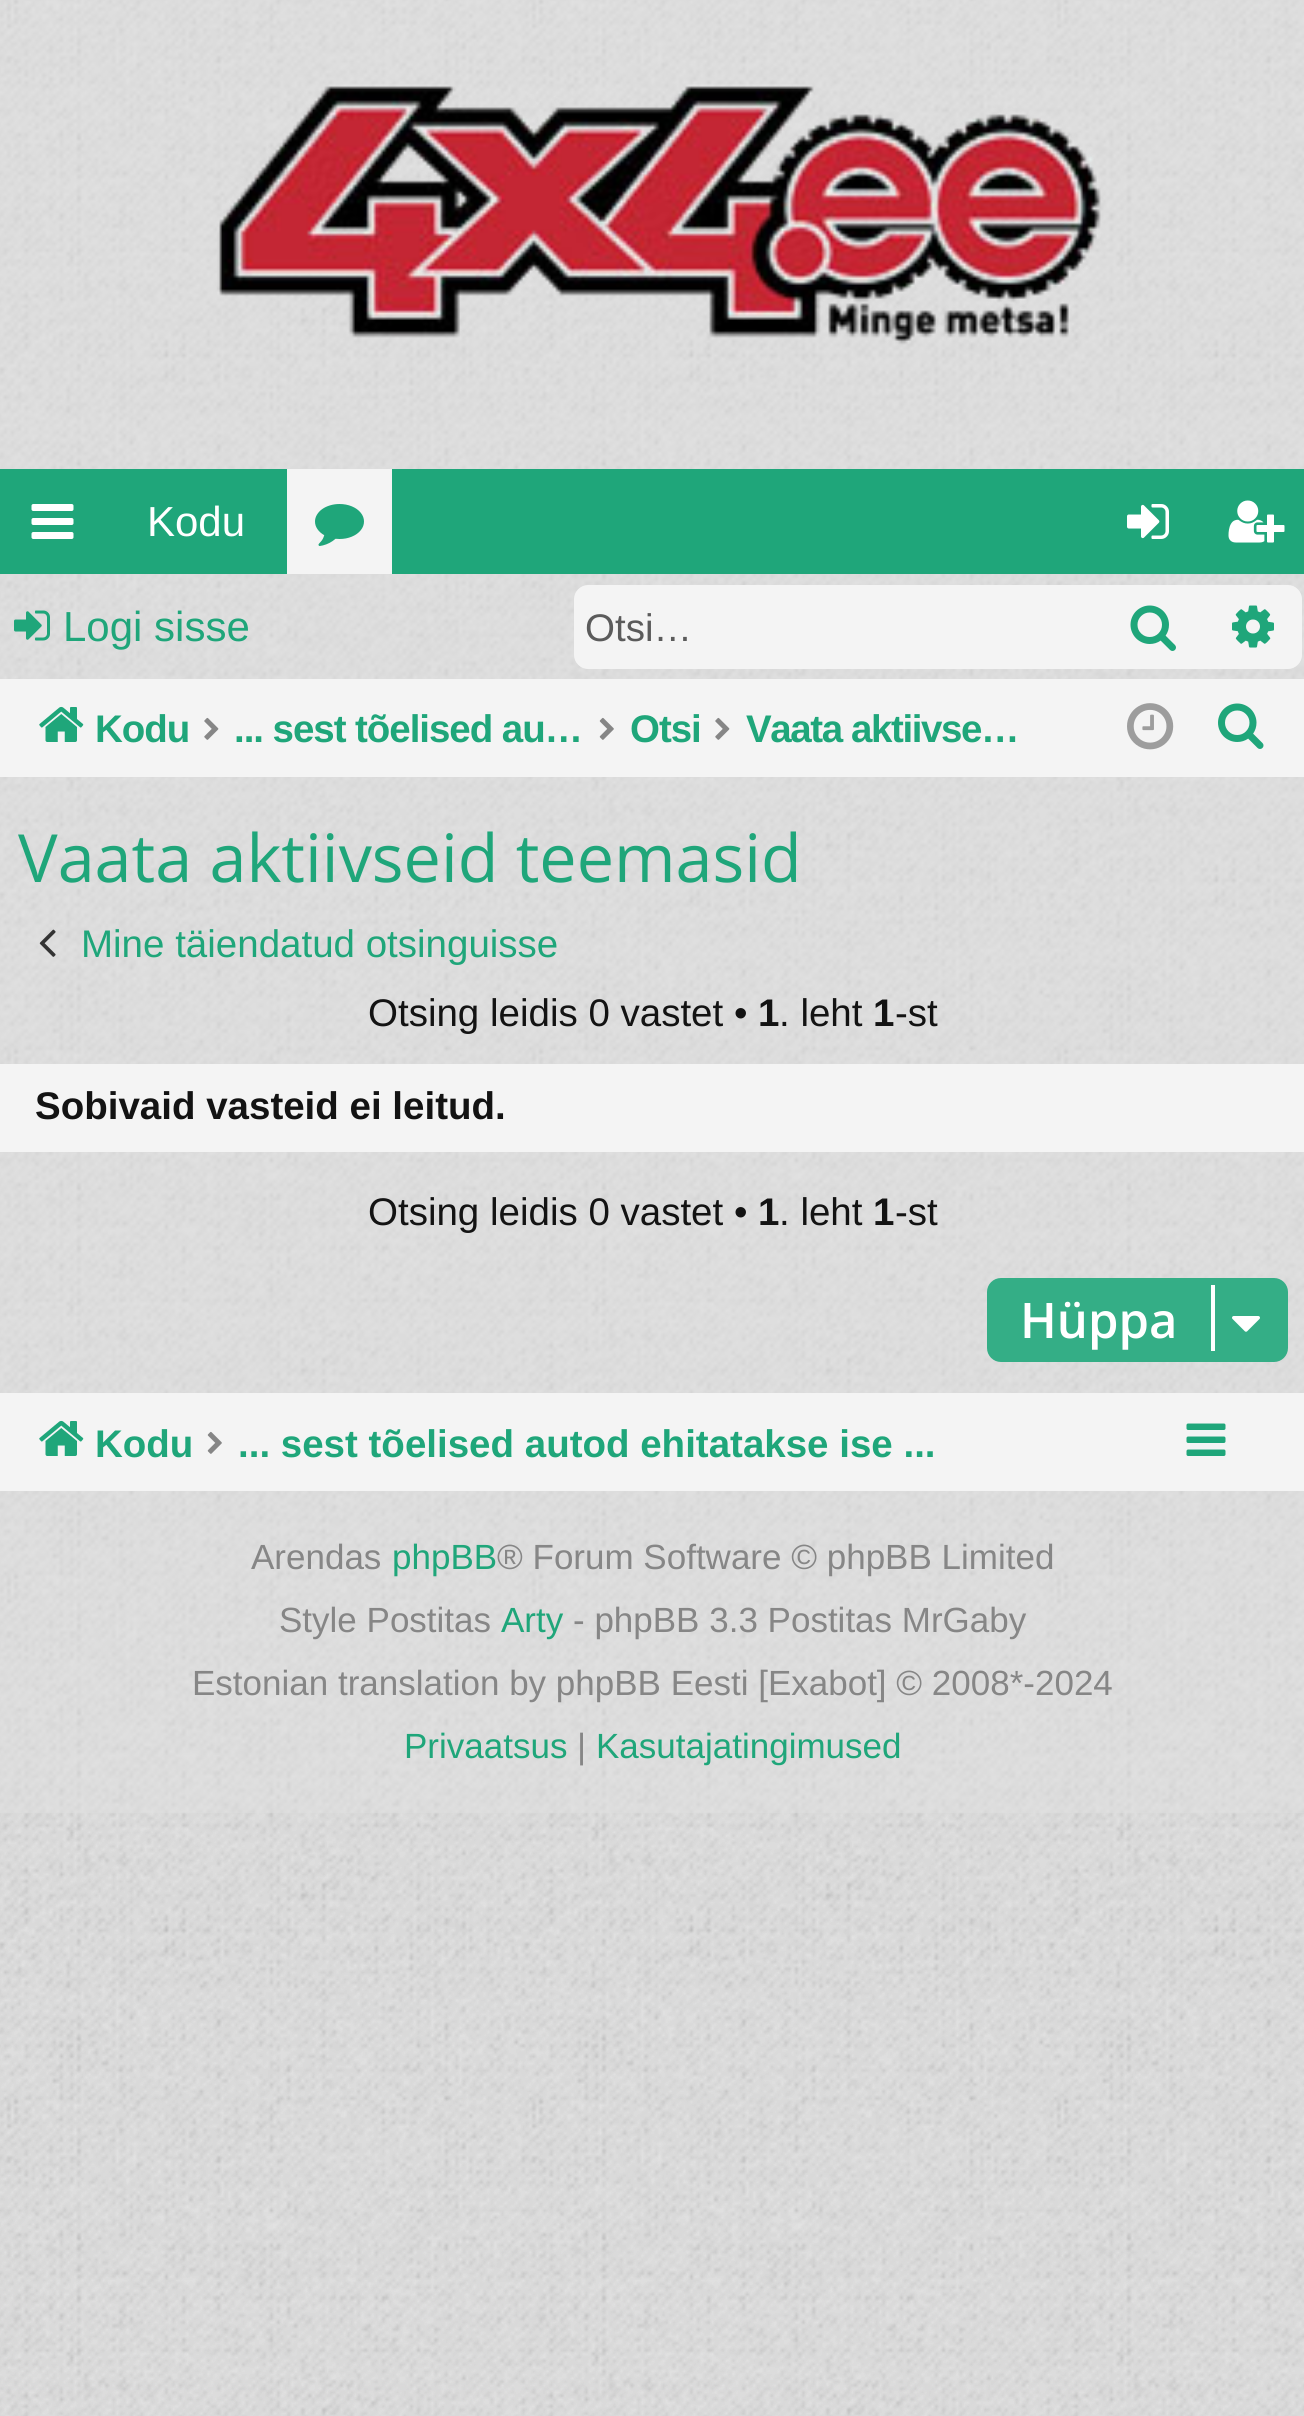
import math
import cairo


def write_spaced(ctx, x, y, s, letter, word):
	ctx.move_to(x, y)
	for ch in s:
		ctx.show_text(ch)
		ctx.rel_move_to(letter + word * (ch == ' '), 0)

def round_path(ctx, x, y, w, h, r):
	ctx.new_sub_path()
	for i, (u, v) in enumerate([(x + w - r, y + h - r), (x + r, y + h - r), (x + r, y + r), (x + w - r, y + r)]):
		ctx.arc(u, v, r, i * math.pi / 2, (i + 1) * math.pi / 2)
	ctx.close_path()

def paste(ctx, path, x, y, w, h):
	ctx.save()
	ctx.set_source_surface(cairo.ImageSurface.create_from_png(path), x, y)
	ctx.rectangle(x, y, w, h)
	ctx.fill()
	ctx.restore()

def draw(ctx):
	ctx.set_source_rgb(0.878, 0.878, 0.878)
	ctx.paint()
	paste(ctx, 'media/1.png', 0, 1813, 1304, 603)
	paste(ctx, 'media/2.png', 0, 0, 1304, 2416)
	paste(ctx, 'media/3.png', 217, 84, 884, 261)
	ctx.set_source_rgb(0.122, 0.651, 0.478)
	ctx.rectangle(0, 469, 1304, 105)
	ctx.fill()
	paste(ctx, 'media/4.png', 31, 504, 43, 35)
	ctx.select_font_face('Liberation Sans')
	ctx.set_font_size(42)
	ctx.set_source_rgb(1, 1, 1)
	ctx.move_to(147, 536)
	ctx.show_text('Kodu')
	ctx.set_source_rgb(0.957, 0.957, 0.957)
	ctx.rectangle(287, 469, 105, 105)
	ctx.fill()
	paste(ctx, 'media/5.png', 315, 504, 49, 42)
	paste(ctx, 'media/6.png', 1127, 504, 42, 35)
	paste(ctx, 'media/7.png', 1228, 500, 57, 43)
	paste(ctx, 'media/8.png', 14, 610, 36, 31)
	ctx.set_source_rgb(0.122, 0.651, 0.478)
	ctx.move_to(63, 641)
	ctx.show_text('Logi sisse')
	ctx.set_source_rgb(0.957, 0.957, 0.957)
	ctx.new_path()
	ctx.move_to(588, 585)
	ctx.line_to(1099, 585)
	ctx.line_to(1099, 669)
	ctx.line_to(588, 669)
	ctx.curve_to(580.5, 669, 574, 662.5, 574, 655)
	ctx.line_to(574, 599)
	ctx.curve_to(574, 591.5, 580.5, 585, 588, 585)
	ctx.close_path()
	ctx.fill()
	ctx.set_font_size(38.5)
	ctx.set_source_rgb(0.357, 0.357, 0.357)
	ctx.move_to(585, 641)
	ctx.show_text('Otsi…')
	ctx.set_source_rgb(0.957, 0.957, 0.957)
	ctx.rectangle(1099, 585, 105, 84)
	ctx.fill()
	paste(ctx, 'media/9.png', 1130, 605, 46, 46)
	ctx.new_path()
	ctx.move_to(1204, 585)
	ctx.line_to(1288, 585)
	ctx.curve_to(1295.5, 585, 1302, 591.5, 1302, 599)
	ctx.line_to(1302, 655)
	ctx.curve_to(1302, 662.5, 1295.5, 669, 1288, 669)
	ctx.line_to(1204, 669)
	ctx.close_path()
	ctx.fill()
	paste(ctx, 'media/10.png', 1232, 605, 42, 43)
	ctx.rectangle(0, 679, 1304, 98)
	ctx.fill()
	paste(ctx, 'media/11.png', 39, 706, 45, 36)
	ctx.select_font_face('Liberation Sans', cairo.FONT_SLANT_NORMAL, cairo.FONT_WEIGHT_BOLD)
	ctx.set_source_rgb(0.122, 0.651, 0.478)
	write_spaced(ctx, 95, 742, 'Kodu', -1.05, 0)
	paste(ctx, 'media/12.png', 204, 717, 15, 23)
	write_spaced(ctx, 234, 742, '... sest tõelised au…', -1.05, 0)
	paste(ctx, 'media/13.png', 599, 717, 15, 23)
	write_spaced(ctx, 630, 742, 'Otsi', -1.05, 0)
	paste(ctx, 'media/12.png', 715, 717, 15, 23)
	write_spaced(ctx, 746, 742, 'Vaata aktiivse…', -1.4, 0)
	paste(ctx, 'media/14.png', 1127, 703, 47, 47)
	paste(ctx, 'media/15.png', 1218, 703, 46, 46)
	ctx.select_font_face('Open Sans')
	ctx.set_font_size(66.5)
	ctx.move_to(18, 882)
	ctx.show_text('Vaata aktiivseid teemasid')
	paste(ctx, 'media/16.png', 39, 929, 17, 28)
	ctx.select_font_face('Liberation Sans')
	ctx.set_font_size(38.5)
	ctx.move_to(81, 957)
	ctx.show_text('Mine täiendatud otsinguisse')
	ctx.set_source_rgb(0.078, 0.078, 0.078)
	ctx.move_to(368, 1026)
	ctx.show_text('Otsing leidis 0 vastet •')
	ctx.select_font_face('Liberation Sans', cairo.FONT_SLANT_NORMAL, cairo.FONT_WEIGHT_BOLD)
	ctx.move_to(758, 1026)
	ctx.show_text('1')
	ctx.select_font_face('Liberation Sans')
	ctx.move_to(779, 1026)
	ctx.show_text('. leht')
	ctx.select_font_face('Liberation Sans', cairo.FONT_SLANT_NORMAL, cairo.FONT_WEIGHT_BOLD)
	ctx.move_to(873, 1026)
	ctx.show_text('1')
	ctx.select_font_face('Liberation Sans')
	ctx.move_to(895, 1026)
	ctx.show_text('-st')
	ctx.set_source_rgb(0.957, 0.957, 0.957)
	ctx.rectangle(0, 1064, 1304, 88)
	ctx.fill()
	ctx.select_font_face('Liberation Sans', cairo.FONT_SLANT_NORMAL, cairo.FONT_WEIGHT_BOLD)
	ctx.set_source_rgb(0.078, 0.078, 0.078)
	ctx.move_to(35, 1119)
	ctx.show_text('Sobivaid vasteid ei leitud.')
	ctx.select_font_face('Liberation Sans')
	ctx.move_to(368, 1225)
	ctx.show_text('Otsing leidis 0 vastet •')
	ctx.select_font_face('Liberation Sans', cairo.FONT_SLANT_NORMAL, cairo.FONT_WEIGHT_BOLD)
	ctx.move_to(758, 1225)
	ctx.show_text('1')
	ctx.select_font_face('Liberation Sans')
	ctx.move_to(779, 1225)
	ctx.show_text('. leht')
	ctx.select_font_face('Liberation Sans', cairo.FONT_SLANT_NORMAL, cairo.FONT_WEIGHT_BOLD)
	ctx.move_to(873, 1225)
	ctx.show_text('1')
	ctx.select_font_face('Liberation Sans')
	ctx.move_to(895, 1225)
	ctx.show_text('-st')
	ctx.set_source_rgb(0.204, 0.682, 0.525)
	round_path(ctx, 989, 1280, 297, 80, 12)
	ctx.fill_preserve()
	ctx.set_line_width(4)
	ctx.stroke()
	ctx.select_font_face('Open Sans SemiBold')
	ctx.set_font_size(49)
	ctx.set_source_rgb(1, 1, 1)
	ctx.move_to(1020, 1338)
	ctx.show_text('Hüppa')
	ctx.rectangle(1211, 1285, 4, 66)
	ctx.fill()
	paste(ctx, 'media/17.png', 1232, 1316, 28, 16)
	ctx.set_source_rgb(0.957, 0.957, 0.957)
	ctx.rectangle(0, 1393, 1304, 98)
	ctx.fill()
	paste(ctx, 'media/11.png', 39, 1420, 45, 36)
	ctx.select_font_face('Liberation Sans', cairo.FONT_SLANT_NORMAL, cairo.FONT_WEIGHT_BOLD)
	ctx.set_font_size(38.5)
	ctx.set_source_rgb(0.122, 0.651, 0.478)
	ctx.move_to(95, 1457)
	ctx.show_text('Kodu')
	paste(ctx, 'media/13.png', 207, 1431, 15, 23)
	ctx.move_to(238, 1457)
	ctx.show_text('... sest tõelised autod ehitatakse ise ...')
	paste(ctx, 'media/18.png', 1186, 1423, 40, 33)
	ctx.select_font_face('Liberation Sans')
	ctx.set_font_size(35)
	ctx.set_source_rgb(0.525, 0.525, 0.525)
	ctx.move_to(251, 1569)
	ctx.show_text('Arendas')
	ctx.set_source_rgb(0.122, 0.651, 0.478)
	ctx.move_to(392, 1569)
	ctx.show_text('phpBB')
	ctx.set_source_rgb(0.525, 0.525, 0.525)
	ctx.move_to(497, 1569)
	ctx.show_text('® Forum Software © phpBB Limited')
	ctx.move_to(279, 1632)
	ctx.show_text('Style Postitas')
	ctx.set_source_rgb(0.122, 0.651, 0.478)
	ctx.move_to(501, 1632)
	ctx.show_text('Arty')
	ctx.set_source_rgb(0.525, 0.525, 0.525)
	ctx.move_to(573, 1632)
	ctx.show_text('- phpBB 3.3 Postitas MrGaby')
	ctx.move_to(192, 1695)
	ctx.show_text('Estonian translation by phpBB Eesti [Exabot] © 2008*-2024')
	ctx.set_source_rgb(0.122, 0.651, 0.478)
	ctx.move_to(404, 1758)
	ctx.show_text('Privaatsus')
	ctx.set_source_rgb(0.525, 0.525, 0.525)
	ctx.move_to(577, 1758)
	ctx.show_text('|')
	ctx.set_source_rgb(0.122, 0.651, 0.478)
	ctx.move_to(596, 1758)
	ctx.show_text('Kasutajatingimused')


surface = cairo.ImageSurface(cairo.FORMAT_RGB24, 1304, 2416)
ctx = cairo.Context(surface)
options = cairo.FontOptions()
options.set_hint_metrics(cairo.HINT_METRICS_OFF)
options.set_hint_style(cairo.HINT_STYLE_NONE)
ctx.set_font_options(options)
ctx.set_miter_limit(4)
draw(ctx)
surface.write_to_png('image.png')
